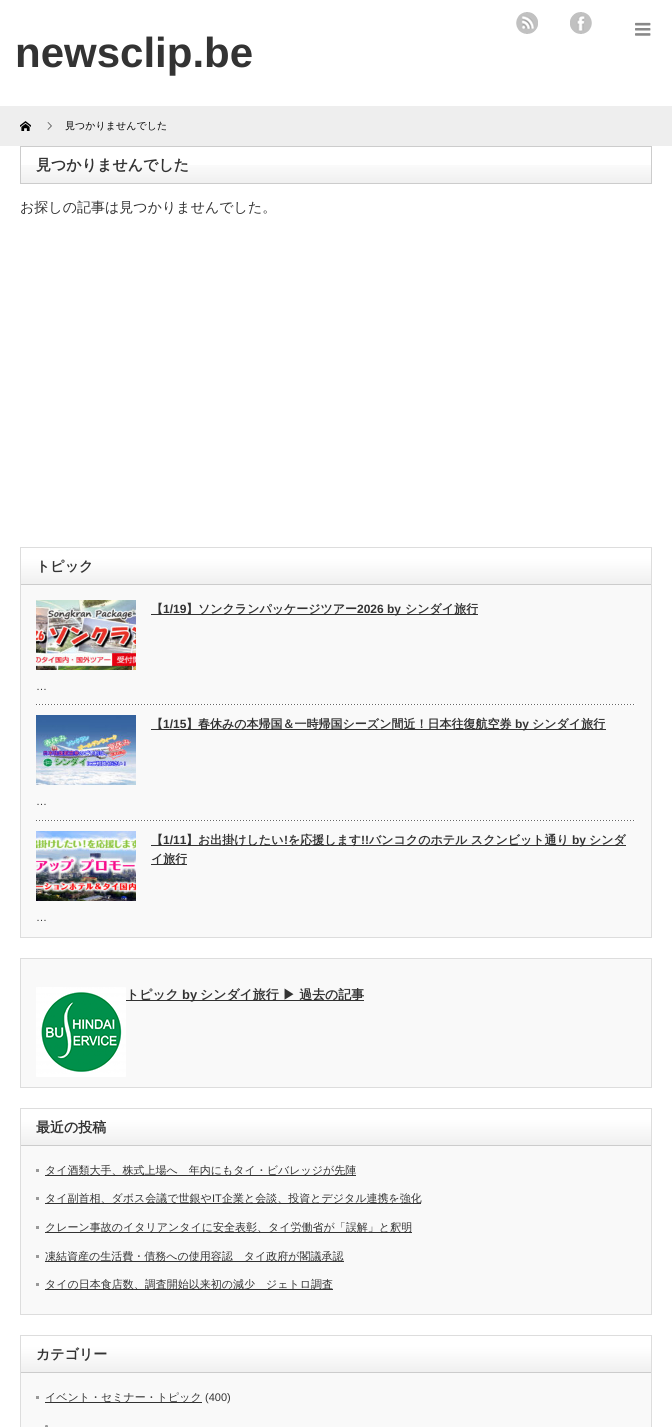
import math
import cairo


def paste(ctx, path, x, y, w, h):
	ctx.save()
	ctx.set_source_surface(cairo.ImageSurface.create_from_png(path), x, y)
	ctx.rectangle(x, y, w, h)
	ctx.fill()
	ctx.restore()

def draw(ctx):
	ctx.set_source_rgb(1, 1, 1)
	ctx.paint()
	paste(ctx, 'media/1.png', 516, 12, 22, 22)
	paste(ctx, 'media/2.png', 570, 12, 22, 22)
	paste(ctx, 'media/3.png', 635, 22, 16, 14)
	ctx.select_font_face('Liberation Sans', cairo.FONT_SLANT_NORMAL, cairo.FONT_WEIGHT_BOLD)
	ctx.set_font_size(42)
	ctx.set_source_rgb(0.2, 0.2, 0.2)
	ctx.move_to(15, 67)
	ctx.show_text('newsclip.be')
	ctx.set_source_rgb(0.933, 0.933, 0.933)
	ctx.rectangle(0, 106, 672, 40)
	ctx.fill()
	paste(ctx, 'media/4.png', 20, 121, 11, 10)
	paste(ctx, 'media/5.png', 47, 122, 5, 8)
	ctx.select_font_face('WenQuanYi Zen Hei Medium')
	ctx.set_font_size(10)
	ctx.set_source_rgb(0, 0, 0)
	ctx.move_to(65, 129)
	ctx.show_text('見つかりませんでした')
	paste(ctx, 'media/6.png', 21, 165, 630, 18)
	ctx.rectangle(20.5, 146.5, 631, 37)
	ctx.set_source_rgb(0.8, 0.8, 0.8)
	ctx.set_line_width(1)
	ctx.stroke()
	ctx.select_font_face('WenQuanYi Zen Hei', cairo.FONT_SLANT_NORMAL, cairo.FONT_WEIGHT_BOLD)
	ctx.set_font_size(15)
	ctx.set_source_rgb(0.2, 0.2, 0.2)
	ctx.move_to(36, 170)
	ctx.show_text('見つかりませんでした')
	ctx.select_font_face('WenQuanYi Zen Hei Medium')
	ctx.set_font_size(14)
	ctx.move_to(20, 212)
	ctx.show_text('お探しの記事は見つかりませんでした。')
	ctx.set_source_rgb(0.976, 0.976, 0.976)
	ctx.rectangle(21, 585, 630, 352)
	ctx.fill()
	ctx.rectangle(20.5, 547.5, 631, 390)
	ctx.set_source_rgb(0.867, 0.867, 0.867)
	ctx.stroke()
	paste(ctx, 'media/7.png', 21, 548, 630, 36)
	ctx.set_source_rgb(0.8, 0.8, 0.8)
	ctx.rectangle(21, 584, 630, 1)
	ctx.fill()
	ctx.select_font_face('WenQuanYi Zen Hei', cairo.FONT_SLANT_NORMAL, cairo.FONT_WEIGHT_BOLD)
	ctx.set_source_rgb(0.2, 0.2, 0.2)
	ctx.move_to(36, 571)
	ctx.show_text('トピック')
	paste(ctx, 'media/8.png', 36, 704, 600, 1)
	paste(ctx, 'media/9.png', 36, 600, 100, 70)
	ctx.rectangle(151, 614, 327, 1)
	ctx.fill()
	ctx.set_font_size(12)
	ctx.move_to(151, 613)
	ctx.show_text('【')
	ctx.select_font_face('Liberation Sans', cairo.FONT_SLANT_NORMAL, cairo.FONT_WEIGHT_BOLD)
	ctx.move_to(163, 613)
	ctx.show_text('1/19')
	ctx.select_font_face('WenQuanYi Zen Hei', cairo.FONT_SLANT_NORMAL, cairo.FONT_WEIGHT_BOLD)
	ctx.move_to(186, 613)
	ctx.show_text('】ソンクランパッケージツアー')
	ctx.select_font_face('Liberation Sans', cairo.FONT_SLANT_NORMAL, cairo.FONT_WEIGHT_BOLD)
	ctx.move_to(357, 613)
	ctx.show_text('2026 by')
	ctx.select_font_face('WenQuanYi Zen Hei', cairo.FONT_SLANT_NORMAL, cairo.FONT_WEIGHT_BOLD)
	ctx.move_to(405, 613)
	ctx.show_text('シンダイ旅行')
	ctx.select_font_face('Liberation Sans')
	ctx.set_font_size(11)
	ctx.move_to(36, 690)
	ctx.show_text('…')
	paste(ctx, 'media/8.png', 36, 820, 600, 1)
	paste(ctx, 'media/10.png', 36, 715, 100, 70)
	ctx.rectangle(151, 729, 455, 1)
	ctx.fill()
	ctx.select_font_face('WenQuanYi Zen Hei', cairo.FONT_SLANT_NORMAL, cairo.FONT_WEIGHT_BOLD)
	ctx.set_font_size(12)
	ctx.move_to(151, 728)
	ctx.show_text('【')
	ctx.select_font_face('Liberation Sans', cairo.FONT_SLANT_NORMAL, cairo.FONT_WEIGHT_BOLD)
	ctx.move_to(163, 728)
	ctx.show_text('1/15')
	ctx.select_font_face('WenQuanYi Zen Hei', cairo.FONT_SLANT_NORMAL, cairo.FONT_WEIGHT_BOLD)
	ctx.move_to(186, 728)
	ctx.show_text('】春休みの本帰国＆一時帰国シーズン間近！日本往復航空券')
	ctx.select_font_face('Liberation Sans', cairo.FONT_SLANT_NORMAL, cairo.FONT_WEIGHT_BOLD)
	ctx.move_to(515, 728)
	ctx.show_text('by')
	ctx.select_font_face('WenQuanYi Zen Hei', cairo.FONT_SLANT_NORMAL, cairo.FONT_WEIGHT_BOLD)
	ctx.move_to(532, 728)
	ctx.show_text('シンダイ旅行')
	ctx.select_font_face('Liberation Sans')
	ctx.set_font_size(11)
	ctx.move_to(36, 805)
	ctx.show_text('…')
	paste(ctx, 'media/11.png', 36, 831, 100, 70)
	ctx.rectangle(151, 845, 475, 1)
	ctx.fill()
	ctx.select_font_face('WenQuanYi Zen Hei', cairo.FONT_SLANT_NORMAL, cairo.FONT_WEIGHT_BOLD)
	ctx.set_font_size(12)
	ctx.move_to(151, 844)
	ctx.show_text('【')
	ctx.select_font_face('Liberation Sans', cairo.FONT_SLANT_NORMAL, cairo.FONT_WEIGHT_BOLD)
	ctx.move_to(163, 844)
	ctx.show_text('1/11')
	ctx.select_font_face('WenQuanYi Zen Hei', cairo.FONT_SLANT_NORMAL, cairo.FONT_WEIGHT_BOLD)
	ctx.move_to(186, 844)
	ctx.show_text('】お出掛けしたい')
	ctx.select_font_face('Liberation Sans', cairo.FONT_SLANT_NORMAL, cairo.FONT_WEIGHT_BOLD)
	ctx.move_to(284, 844)
	ctx.show_text('!')
	ctx.select_font_face('WenQuanYi Zen Hei', cairo.FONT_SLANT_NORMAL, cairo.FONT_WEIGHT_BOLD)
	ctx.move_to(288, 844)
	ctx.show_text('を応援します')
	ctx.select_font_face('Liberation Sans', cairo.FONT_SLANT_NORMAL, cairo.FONT_WEIGHT_BOLD)
	ctx.move_to(361, 844)
	ctx.show_text('!!')
	ctx.select_font_face('WenQuanYi Zen Hei', cairo.FONT_SLANT_NORMAL, cairo.FONT_WEIGHT_BOLD)
	ctx.move_to(369, 844)
	ctx.show_text('バンコクのホテル スクンビット通り')
	ctx.select_font_face('Liberation Sans', cairo.FONT_SLANT_NORMAL, cairo.FONT_WEIGHT_BOLD)
	ctx.move_to(572, 844)
	ctx.show_text('by')
	ctx.select_font_face('WenQuanYi Zen Hei', cairo.FONT_SLANT_NORMAL, cairo.FONT_WEIGHT_BOLD)
	ctx.move_to(589, 844)
	ctx.show_text('シンダ')
	ctx.rectangle(151, 864, 36, 1)
	ctx.fill()
	ctx.move_to(151, 863)
	ctx.show_text('イ旅行')
	ctx.select_font_face('Liberation Sans')
	ctx.set_font_size(11)
	ctx.move_to(36, 921)
	ctx.show_text('…')
	ctx.set_source_rgb(0.976, 0.976, 0.976)
	ctx.rectangle(20.5, 958.5, 631, 129)
	ctx.fill_preserve()
	ctx.set_source_rgb(0.867, 0.867, 0.867)
	ctx.stroke()
	paste(ctx, 'media/12.png', 36, 987, 90, 90)
	ctx.set_source_rgb(0.2, 0.2, 0.2)
	ctx.rectangle(126, 1000, 238, 1)
	ctx.fill()
	ctx.select_font_face('WenQuanYi Zen Hei', cairo.FONT_SLANT_NORMAL, cairo.FONT_WEIGHT_BOLD)
	ctx.set_font_size(12.9)
	ctx.move_to(126, 999)
	ctx.show_text('トピック')
	ctx.select_font_face('Liberation Sans', cairo.FONT_SLANT_NORMAL, cairo.FONT_WEIGHT_BOLD)
	ctx.move_to(182, 999)
	ctx.show_text('by')
	ctx.select_font_face('WenQuanYi Zen Hei', cairo.FONT_SLANT_NORMAL, cairo.FONT_WEIGHT_BOLD)
	ctx.move_to(200, 999)
	ctx.show_text('シンダイ旅行 ▶ 過去の記事')
	ctx.set_source_rgb(0.976, 0.976, 0.976)
	ctx.rectangle(21, 1146, 630, 168)
	ctx.fill()
	ctx.rectangle(20.5, 1108.5, 631, 206)
	ctx.set_source_rgb(0.867, 0.867, 0.867)
	ctx.stroke()
	paste(ctx, 'media/7.png', 21, 1109, 630, 36)
	ctx.set_source_rgb(0.8, 0.8, 0.8)
	ctx.rectangle(21, 1145, 630, 1)
	ctx.fill()
	ctx.set_font_size(14)
	ctx.set_source_rgb(0.2, 0.2, 0.2)
	ctx.move_to(36, 1132)
	ctx.show_text('最近の投稿')
	ctx.set_source_rgb(0.6, 0.6, 0.6)
	ctx.rectangle(36, 1169, 3, 3)
	ctx.fill()
	ctx.set_source_rgb(0.2, 0.2, 0.2)
	ctx.rectangle(45, 1175, 311, 1)
	ctx.fill()
	ctx.select_font_face('WenQuanYi Zen Hei Medium')
	ctx.set_font_size(11)
	ctx.move_to(45, 1174)
	ctx.show_text('タイ酒類大手、株式上場へ　年内にもタイ・ビバレッジが先陣')
	ctx.set_source_rgb(0.6, 0.6, 0.6)
	ctx.rectangle(36, 1197, 3, 3)
	ctx.fill()
	ctx.set_source_rgb(0.2, 0.2, 0.2)
	ctx.rectangle(45, 1203, 376, 1)
	ctx.fill()
	ctx.move_to(45, 1202)
	ctx.show_text('タイ副首相、ダボス会議で世銀や')
	ctx.select_font_face('Liberation Sans')
	ctx.move_to(212, 1202)
	ctx.show_text('IT')
	ctx.select_font_face('WenQuanYi Zen Hei Medium')
	ctx.move_to(222, 1202)
	ctx.show_text('企業と会談、投資とデジタル連携を強化')
	ctx.set_source_rgb(0.6, 0.6, 0.6)
	ctx.rectangle(36, 1226, 3, 3)
	ctx.fill()
	ctx.set_source_rgb(0.2, 0.2, 0.2)
	ctx.rectangle(45, 1232, 367, 1)
	ctx.fill()
	ctx.move_to(45, 1231)
	ctx.show_text('クレーン事故のイタリアンタイに安全表彰、タイ労働省が「誤解」と釈明')
	ctx.set_source_rgb(0.6, 0.6, 0.6)
	ctx.rectangle(36, 1255, 3, 3)
	ctx.fill()
	ctx.set_source_rgb(0.2, 0.2, 0.2)
	ctx.rectangle(45, 1261, 299, 1)
	ctx.fill()
	ctx.move_to(45, 1260)
	ctx.show_text('凍結資産の生活費・債務への使用容認　タイ政府が閣議承認')
	ctx.set_source_rgb(0.6, 0.6, 0.6)
	ctx.rectangle(36, 1283, 3, 3)
	ctx.fill()
	ctx.set_source_rgb(0.2, 0.2, 0.2)
	ctx.rectangle(45, 1289, 288, 1)
	ctx.fill()
	ctx.move_to(45, 1288)
	ctx.show_text('タイの日本食店数、調査開始以来初の減少　ジェトロ調査')
	ctx.set_source_rgb(0.976, 0.976, 0.976)
	ctx.rectangle(21, 1373, 630, 54)
	ctx.fill()
	ctx.rectangle(20.5, 1335.5, 631, 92)
	ctx.set_source_rgb(0.867, 0.867, 0.867)
	ctx.stroke()
	paste(ctx, 'media/7.png', 21, 1336, 630, 36)
	ctx.set_source_rgb(0.8, 0.8, 0.8)
	ctx.rectangle(21, 1372, 630, 1)
	ctx.fill()
	ctx.select_font_face('WenQuanYi Zen Hei', cairo.FONT_SLANT_NORMAL, cairo.FONT_WEIGHT_BOLD)
	ctx.set_font_size(14)
	ctx.set_source_rgb(0.2, 0.2, 0.2)
	ctx.move_to(36, 1359)
	ctx.show_text('カテゴリー')
	ctx.set_source_rgb(0.6, 0.6, 0.6)
	ctx.rectangle(36, 1396, 3, 3)
	ctx.fill()
	ctx.set_source_rgb(0.2, 0.2, 0.2)
	ctx.rectangle(45, 1402, 157, 1)
	ctx.fill()
	ctx.select_font_face('WenQuanYi Zen Hei Medium')
	ctx.set_font_size(11)
	ctx.move_to(45, 1401)
	ctx.show_text('イベント・セミナー・トピック')
	ctx.select_font_face('Liberation Sans')
	ctx.move_to(205, 1401)
	ctx.show_text('(400)')
	paste(ctx, 'media/13.png', 45, 1425, 3, 2)


surface = cairo.ImageSurface(cairo.FORMAT_RGB24, 672, 1427)
ctx = cairo.Context(surface)
options = cairo.FontOptions()
options.set_hint_metrics(cairo.HINT_METRICS_OFF)
options.set_hint_style(cairo.HINT_STYLE_NONE)
ctx.set_font_options(options)
ctx.set_miter_limit(4)
draw(ctx)
surface.write_to_png('image.png')
